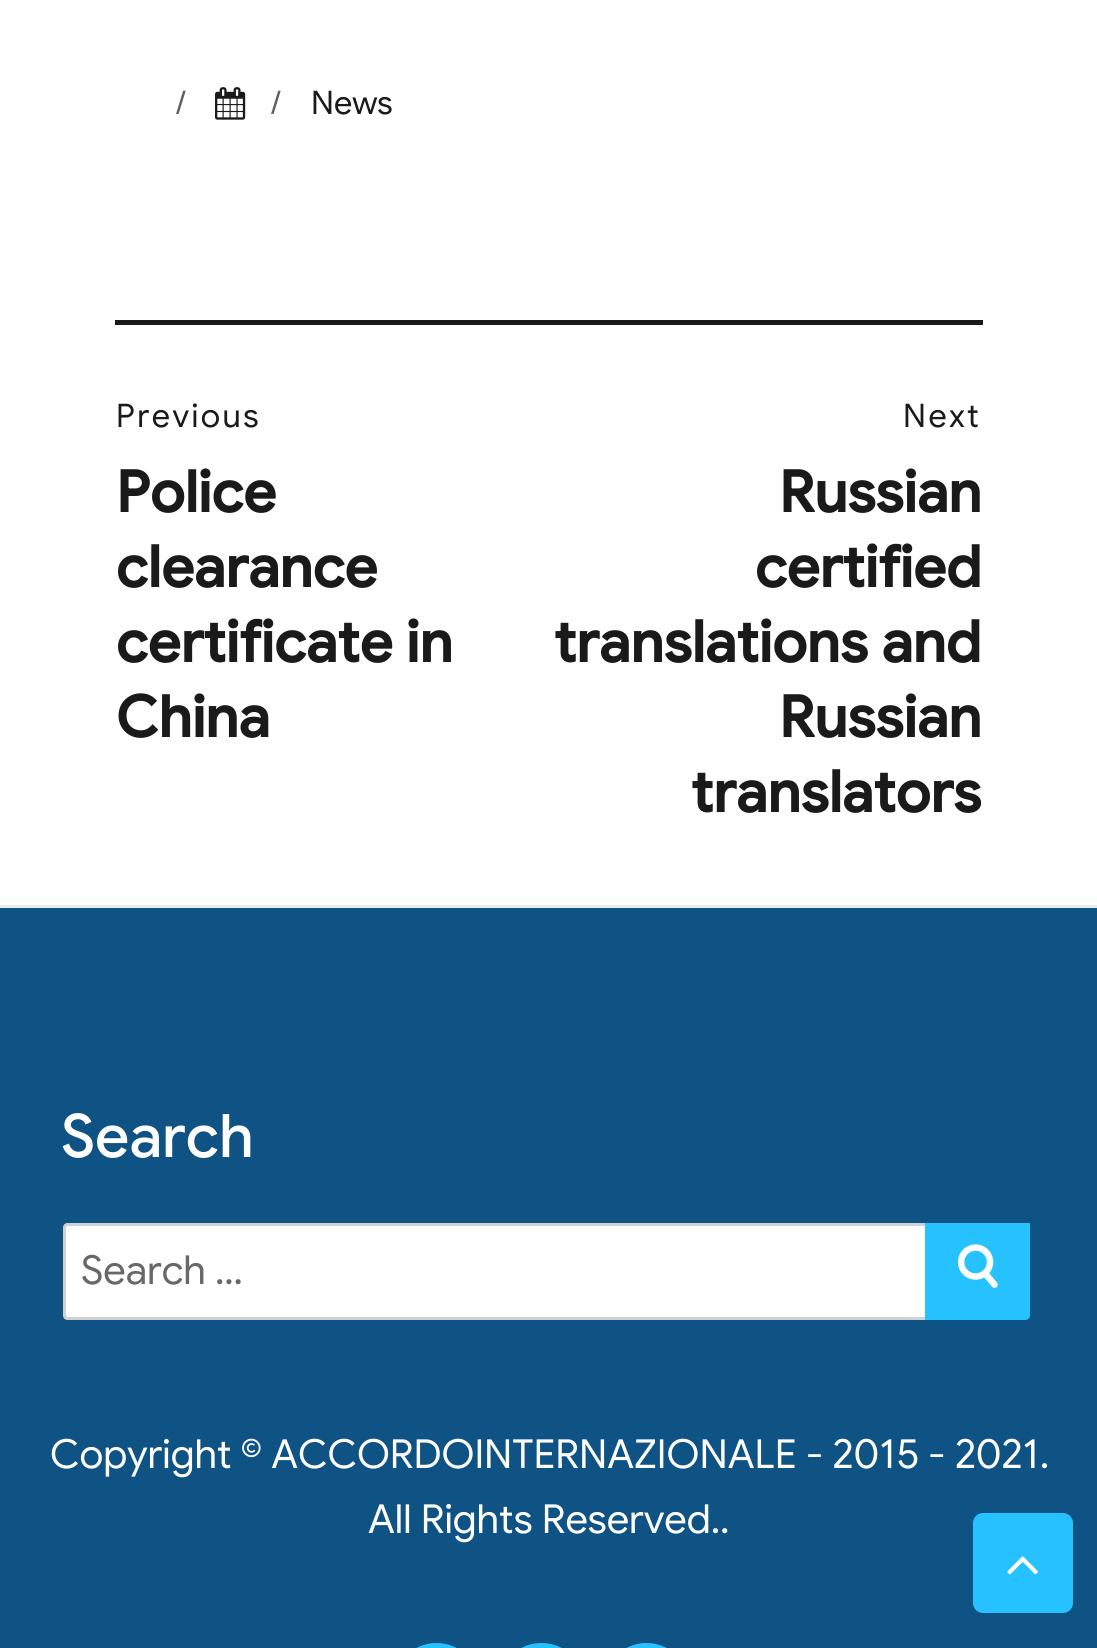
import math
import cairo


def write_spaced(ctx, x, y, s, letter, word):
	ctx.move_to(x, y)
	for ch in s:
		ctx.show_text(ch)
		ctx.rel_move_to(letter + word * (ch == ' '), 0)

def round_path(ctx, x, y, w, h, r):
	ctx.new_sub_path()
	for i, (u, v) in enumerate([(x + w - r, y + h - r), (x + r, y + h - r), (x + r, y + r), (x + w - r, y + r)]):
		ctx.arc(u, v, r, i * math.pi / 2, (i + 1) * math.pi / 2)
	ctx.close_path()

def paste(ctx, path, x, y, w, h):
	ctx.save()
	ctx.set_source_surface(cairo.ImageSurface.create_from_png(path), x, y)
	ctx.rectangle(x, y, w, h)
	ctx.fill()
	ctx.restore()

def draw(ctx):
	ctx.set_source_rgb(1, 1, 1)
	ctx.paint()
	ctx.select_font_face('Google Sans')
	ctx.set_font_size(32.5)
	ctx.set_source_rgb(0.373, 0.373, 0.373)
	ctx.move_to(176, 114)
	ctx.show_text('/')
	paste(ctx, 'media/1.png', 215, 87, 31, 33)
	ctx.move_to(271, 114)
	ctx.show_text('/')
	ctx.set_source_rgb(0.102, 0.102, 0.102)
	ctx.move_to(311, 114)
	ctx.show_text('News')
	ctx.rectangle(115, 320, 868, 5)
	ctx.fill()
	write_spaced(ctx, 116, 427, 'Previous', 2.5, 0)
	ctx.select_font_face('Google Sans', cairo.FONT_SLANT_NORMAL, cairo.FONT_WEIGHT_BOLD)
	ctx.set_font_size(57.5)
	for x, y, s in [
		(116, 512, 'Police'),
		(116, 587, 'clearance'),
		(116, 662, 'certificate in'),
		(116, 737, 'China'),
	]:
		ctx.move_to(x, y)
		ctx.show_text(s)
	ctx.select_font_face('Google Sans')
	ctx.set_font_size(32.5)
	write_spaced(ctx, 903, 427, 'Next', 2.5, 0)
	ctx.select_font_face('Google Sans', cairo.FONT_SLANT_NORMAL, cairo.FONT_WEIGHT_BOLD)
	ctx.set_font_size(57.5)
	for x, y, s in [
		(779, 512, 'Russian'),
		(755, 587, 'certified'),
		(554, 662, 'translations and'),
		(779, 737, 'Russian'),
		(691, 812, 'translators'),
	]:
		ctx.move_to(x, y)
		ctx.show_text(s)
	ctx.set_source_rgb(0.059, 0.322, 0.518)
	ctx.rectangle(0, 908, 1097, 740)
	ctx.fill()
	ctx.set_source_rgb(0.918, 0.918, 0.918)
	ctx.rectangle(0, 905, 1097, 3)
	ctx.fill()
	ctx.select_font_face('Google Sans Medium')
	ctx.set_font_size(60)
	ctx.set_source_rgb(1, 1, 1)
	ctx.move_to(61, 1157)
	ctx.show_text('Search')
	ctx.new_path()
	ctx.move_to(68, 1223)
	ctx.line_to(930, 1223)
	ctx.line_to(930, 1320)
	ctx.line_to(68, 1320)
	ctx.curve_to(65, 1320, 63, 1318, 63, 1315)
	ctx.line_to(63, 1228)
	ctx.curve_to(63, 1225, 65, 1223, 68, 1223)
	ctx.close_path()
	ctx.fill()
	ctx.new_path()
	ctx.move_to(68, 1224.5)
	ctx.line_to(928.5, 1224.5)
	ctx.line_to(928.5, 1318.5)
	ctx.line_to(68, 1318.5)
	ctx.curve_to(66, 1318.5, 64.5, 1317, 64.5, 1315)
	ctx.line_to(64.5, 1228)
	ctx.curve_to(64.5, 1226, 66, 1224.5, 68, 1224.5)
	ctx.close_path()
	ctx.set_source_rgba(0.102, 0.102, 0.102, 0.2)
	ctx.set_line_width(3)
	ctx.stroke()
	ctx.select_font_face('Google Sans')
	ctx.set_font_size(40)
	ctx.set_source_rgb(0.408, 0.408, 0.408)
	ctx.move_to(81, 1284)
	ctx.show_text('Search …')
	ctx.set_source_rgb(0.145, 0.761, 1)
	ctx.new_path()
	ctx.move_to(925, 1223)
	ctx.line_to(1030, 1223)
	ctx.line_to(1030, 1315)
	ctx.curve_to(1030, 1318, 1028, 1320, 1025, 1320)
	ctx.line_to(925, 1320)
	ctx.close_path()
	ctx.fill()
	paste(ctx, 'media/2.png', 957, 1244, 41, 44)
	ctx.set_source_rgb(1, 1, 1)
	ctx.move_to(50, 1468)
	ctx.show_text('Copyright © ACCORDOINTERNAZIONALE - 2015 - 2021.')
	ctx.move_to(368, 1533)
	ctx.show_text('All Rights Reserved..')
	ctx.set_source_rgb(0.145, 0.761, 1)
	round_path(ctx, 393, 1643, 87, 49, 43.5)
	ctx.fill()
	round_path(ctx, 498, 1643, 87, 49, 43.5)
	ctx.fill()
	round_path(ctx, 603, 1643, 87, 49, 43.5)
	ctx.fill()
	round_path(ctx, 973, 1513, 100, 100, 10)
	ctx.fill()
	paste(ctx, 'media/3.png', 1007, 1556, 31, 19)


surface = cairo.ImageSurface(cairo.FORMAT_RGB24, 1097, 1648)
ctx = cairo.Context(surface)
options = cairo.FontOptions()
options.set_hint_metrics(cairo.HINT_METRICS_OFF)
options.set_hint_style(cairo.HINT_STYLE_NONE)
ctx.set_font_options(options)
ctx.set_miter_limit(4)
draw(ctx)
surface.write_to_png('image.png')
